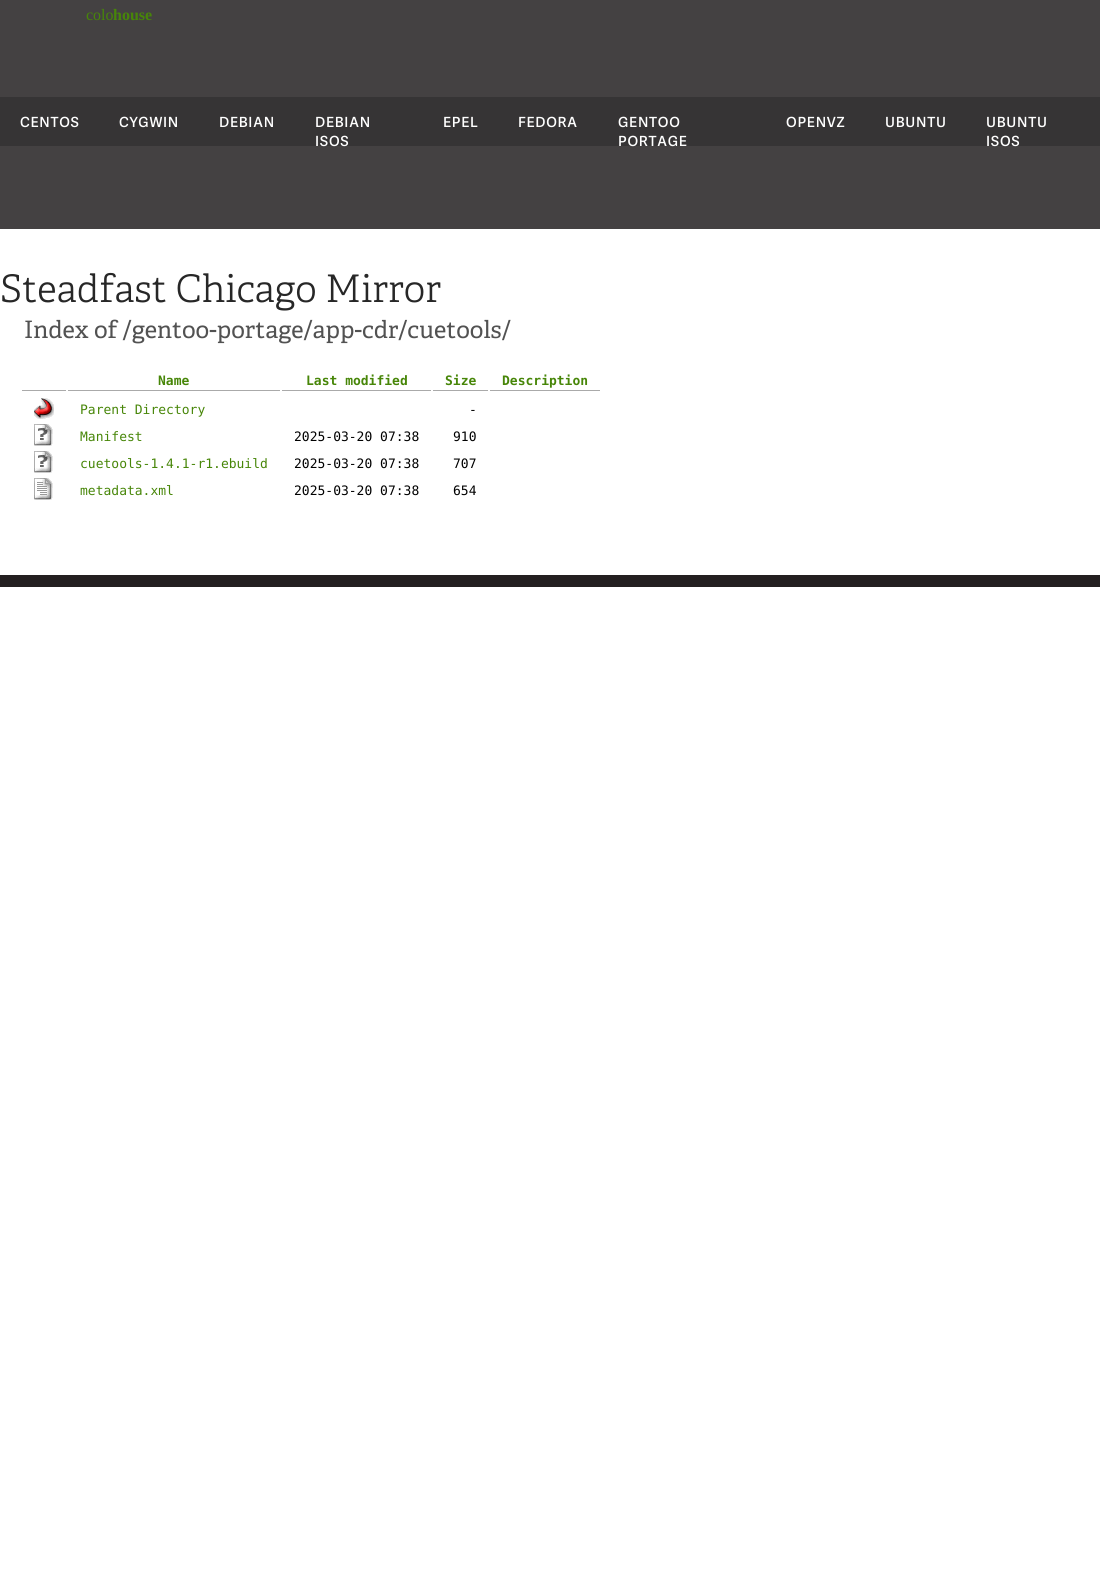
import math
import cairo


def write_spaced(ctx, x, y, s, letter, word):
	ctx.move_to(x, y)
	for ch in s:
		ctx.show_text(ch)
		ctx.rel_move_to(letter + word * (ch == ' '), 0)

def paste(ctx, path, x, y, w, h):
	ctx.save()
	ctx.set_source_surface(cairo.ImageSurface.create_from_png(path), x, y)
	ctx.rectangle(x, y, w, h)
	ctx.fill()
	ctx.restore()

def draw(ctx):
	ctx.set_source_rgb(1, 1, 1)
	ctx.paint()
	ctx.set_source_rgb(0.267, 0.255, 0.259)
	ctx.rectangle(0, 0, 1100, 229)
	ctx.fill()
	ctx.select_font_face('Liberation Serif')
	ctx.set_font_size(16)
	ctx.set_source_rgb(0.278, 0.525, 0.035)
	ctx.move_to(86, 20)
	ctx.show_text('colo')
	ctx.select_font_face('Liberation Serif', cairo.FONT_SLANT_NORMAL, cairo.FONT_WEIGHT_BOLD)
	ctx.move_to(113, 20)
	ctx.show_text('house')
	ctx.set_source_rgb(0.212, 0.204, 0.208)
	ctx.rectangle(0, 97, 1100, 49)
	ctx.fill()
	ctx.select_font_face('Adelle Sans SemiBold')
	ctx.set_font_size(14)
	ctx.set_source_rgb(1, 1, 1)
	for x, y, s in [
		(20, 127, 'CENTOS'),
		(119, 127, 'CYGWIN'),
		(219, 127, 'DEBIAN'),
		(315, 127, 'DEBIAN'),
		(315, 146, 'ISOS'),
		(443, 127, 'EPEL'),
		(518, 127, 'FEDORA'),
		(618, 127, 'GENTOO'),
		(618, 146, 'PORTAGE'),
		(786, 127, 'OPENVZ'),
		(885, 127, 'UBUNTU'),
		(986, 127, 'UBUNTU'),
		(986, 146, 'ISOS'),
	]:
		write_spaced(ctx, x, y, s, 0.75, 0)
	ctx.select_font_face('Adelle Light')
	ctx.set_font_size(38)
	ctx.set_source_rgb(0.153, 0.153, 0.153)
	ctx.move_to(0, 302)
	ctx.show_text('Steadfast Chicago Mirror')
	ctx.select_font_face('Adelle')
	ctx.set_font_size(24)
	ctx.set_source_rgb(0.322, 0.322, 0.322)
	ctx.move_to(24, 338)
	ctx.show_text('Index of /gentoo-portage/app-cdr/cuetools/')
	ctx.set_source_rgb(0.667, 0.667, 0.667)
	ctx.rectangle(68, 390, 212, 1)
	ctx.fill()
	ctx.select_font_face('DejaVu Sans Mono', cairo.FONT_SLANT_NORMAL, cairo.FONT_WEIGHT_BOLD)
	ctx.set_font_size(13)
	ctx.set_source_rgb(0.278, 0.525, 0.035)
	ctx.move_to(158, 385)
	ctx.show_text('Name')
	ctx.set_source_rgb(0.667, 0.667, 0.667)
	ctx.rectangle(282, 390, 149, 1)
	ctx.fill()
	ctx.set_source_rgb(0.278, 0.525, 0.035)
	ctx.move_to(306, 385)
	ctx.show_text('Last modified')
	ctx.set_source_rgb(0.667, 0.667, 0.667)
	ctx.rectangle(433, 390, 55, 1)
	ctx.fill()
	ctx.set_source_rgb(0.278, 0.525, 0.035)
	ctx.move_to(445, 385)
	ctx.show_text('Size')
	ctx.set_source_rgb(0.667, 0.667, 0.667)
	ctx.rectangle(490, 390, 110, 1)
	ctx.fill()
	ctx.set_source_rgb(0.278, 0.525, 0.035)
	ctx.move_to(502, 385)
	ctx.show_text('Description')
	ctx.set_source_rgb(0.667, 0.667, 0.667)
	ctx.rectangle(22, 390, 44, 1)
	ctx.fill()
	paste(ctx, 'media/1.png', 34, 398, 20, 21)
	ctx.select_font_face('DejaVu Sans Mono')
	ctx.set_source_rgb(0.278, 0.525, 0.035)
	ctx.move_to(80, 414)
	ctx.show_text('Parent Directory')
	ctx.set_source_rgb(0, 0, 0)
	ctx.move_to(469, 414)
	ctx.show_text('-')
	paste(ctx, 'media/2.png', 34, 424, 19, 22)
	ctx.set_source_rgb(0.278, 0.525, 0.035)
	ctx.move_to(80, 441)
	ctx.show_text('Manifest')
	ctx.set_source_rgb(0, 0, 0)
	ctx.move_to(294, 441)
	ctx.show_text('2025-03-20 07:38')
	ctx.move_to(453, 441)
	ctx.show_text('910')
	paste(ctx, 'media/2.png', 34, 451, 19, 22)
	ctx.set_source_rgb(0.278, 0.525, 0.035)
	ctx.move_to(80, 468)
	ctx.show_text('cuetools-1.4.1-r1.ebuild')
	ctx.set_source_rgb(0, 0, 0)
	ctx.move_to(294, 468)
	ctx.show_text('2025-03-20 07:38')
	ctx.move_to(453, 468)
	ctx.show_text('707')
	paste(ctx, 'media/3.png', 34, 478, 19, 22)
	ctx.set_source_rgb(0.278, 0.525, 0.035)
	ctx.move_to(80, 495)
	ctx.show_text('metadata.xml')
	ctx.set_source_rgb(0, 0, 0)
	ctx.move_to(294, 495)
	ctx.show_text('2025-03-20 07:38')
	ctx.move_to(453, 495)
	ctx.show_text('654')
	ctx.set_source_rgb(0.137, 0.122, 0.125)
	ctx.rectangle(0, 575, 1100, 12)
	ctx.fill()


surface = cairo.ImageSurface(cairo.FORMAT_RGB24, 1100, 1576)
ctx = cairo.Context(surface)
options = cairo.FontOptions()
options.set_hint_metrics(cairo.HINT_METRICS_OFF)
options.set_hint_style(cairo.HINT_STYLE_NONE)
ctx.set_font_options(options)
ctx.set_miter_limit(4)
draw(ctx)
surface.write_to_png('image.png')
